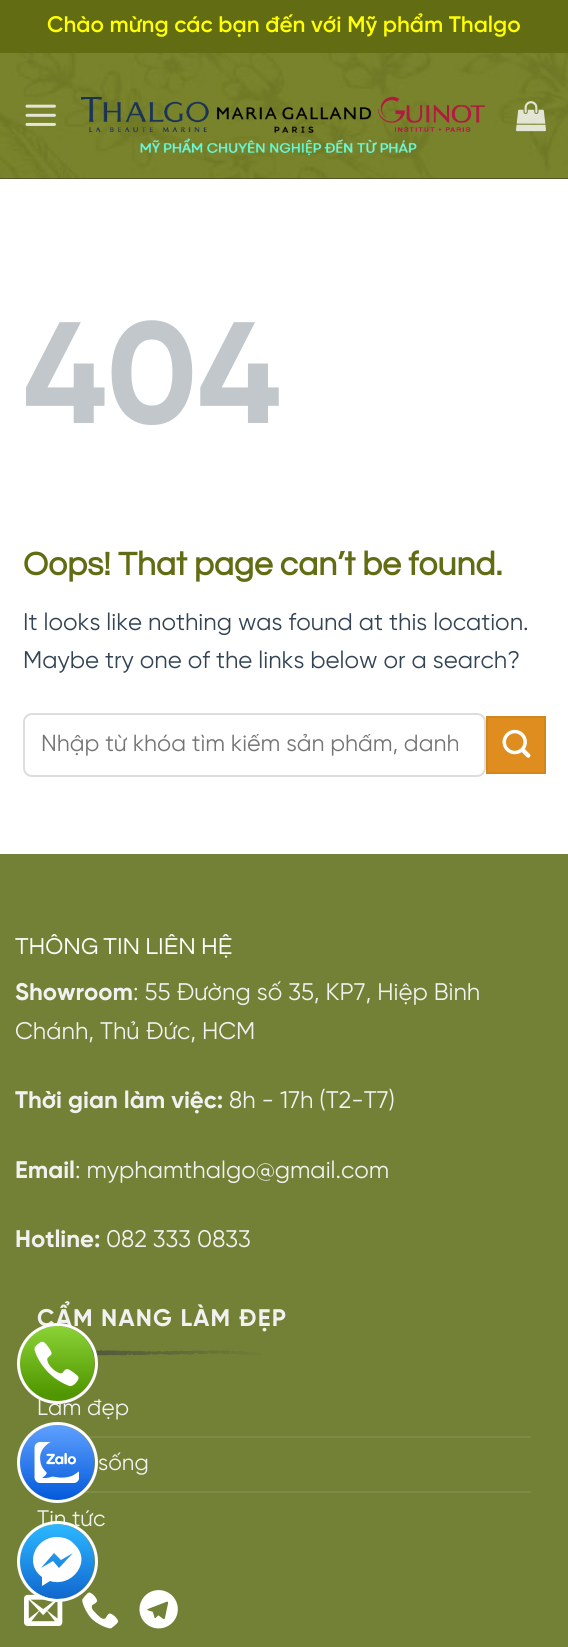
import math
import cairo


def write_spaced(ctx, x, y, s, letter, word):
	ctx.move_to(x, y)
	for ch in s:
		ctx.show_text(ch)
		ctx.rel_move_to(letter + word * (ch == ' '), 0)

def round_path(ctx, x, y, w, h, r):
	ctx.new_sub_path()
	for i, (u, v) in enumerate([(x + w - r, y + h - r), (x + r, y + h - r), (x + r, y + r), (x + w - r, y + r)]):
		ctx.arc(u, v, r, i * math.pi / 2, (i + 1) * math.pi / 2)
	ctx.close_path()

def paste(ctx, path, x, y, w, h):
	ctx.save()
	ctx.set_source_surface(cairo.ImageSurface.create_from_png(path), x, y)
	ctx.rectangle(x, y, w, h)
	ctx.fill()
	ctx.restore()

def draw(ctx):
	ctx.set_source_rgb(1, 1, 1)
	ctx.paint()
	ctx.set_source_rgb(0.384, 0.424, 0.075)
	ctx.rectangle(0, 0, 568, 53)
	ctx.fill()
	ctx.select_font_face('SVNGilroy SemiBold')
	ctx.set_font_size(22.5)
	ctx.set_source_rgb(1, 1, 0)
	ctx.move_to(47, 32)
	ctx.show_text('Chào mừng các bạn đến với Mỹ phẩm Thalgo')
	ctx.set_source_rgb(0.176, 0.176, 0.176)
	ctx.rectangle(0, 178, 568, 1)
	ctx.fill()
	paste(ctx, 'media/1.png', 0, 53, 568, 126)
	paste(ctx, 'media/2.png', 25, 104, 31, 22)
	paste(ctx, 'media/3.png', 81, 96, 404, 60)
	paste(ctx, 'media/4.png', 516, 101, 30, 31)
	ctx.select_font_face('SVNGilroy', cairo.FONT_SLANT_NORMAL, cairo.FONT_WEIGHT_BOLD)
	ctx.set_font_size(144)
	ctx.set_source_rgb(0.761, 0.78, 0.8)
	ctx.move_to(23, 423)
	ctx.show_text('404')
	ctx.select_font_face('Questrial', cairo.FONT_SLANT_NORMAL, cairo.FONT_WEIGHT_BOLD)
	ctx.set_font_size(33.6)
	ctx.set_source_rgb(0.384, 0.424, 0.075)
	ctx.move_to(23, 575)
	ctx.show_text('Oops! That page can’t be found.')
	ctx.select_font_face('SVNGilroy')
	ctx.set_font_size(24)
	ctx.set_source_rgb(0.2, 0.267, 0.333)
	ctx.move_to(23, 630)
	ctx.show_text('It looks like nothing was found at this location.')
	ctx.move_to(23, 668)
	ctx.show_text('Maybe try one of the links below or a search?')
	round_path(ctx, 24, 714, 461, 62, 8)
	ctx.set_source_rgb(0.867, 0.867, 0.867)
	ctx.stroke()
	ctx.save()
	ctx.rectangle(42, 734, 420, 24)
	ctx.clip()
	ctx.set_font_size(23.25)
	ctx.set_source_rgb(0.459, 0.459, 0.459)
	ctx.move_to(41, 751)
	ctx.show_text('Nhập từ khóa tìm kiếm sản phẩm, danh')
	ctx.restore()
	ctx.set_source_rgb(0.871, 0.553, 0.118)
	ctx.rectangle(487, 717, 58, 56)
	ctx.fill_preserve()
	ctx.set_source_rgb(0.827, 0.525, 0.114)
	ctx.stroke()
	paste(ctx, 'media/5.png', 502, 729, 29, 29)
	ctx.set_source_rgb(0.451, 0.506, 0.212)
	ctx.rectangle(0, 854, 568, 793)
	ctx.fill()
	ctx.select_font_face('Questrial')
	ctx.set_source_rgb(1, 1, 1)
	ctx.move_to(15, 954)
	ctx.show_text('THÔNG TIN LIÊN HỆ')
	ctx.select_font_face('SVNGilroy', cairo.FONT_SLANT_NORMAL, cairo.FONT_WEIGHT_BOLD)
	ctx.set_source_rgb(0.945, 0.945, 0.945)
	ctx.move_to(15, 1000)
	ctx.show_text('Showroom')
	ctx.select_font_face('SVNGilroy')
	ctx.move_to(133, 1000)
	ctx.show_text(': 55 Đường số 35, KP7, Hiệp Bình')
	ctx.move_to(15, 1039)
	ctx.show_text('Chánh, Thủ Đức, HCM')
	ctx.select_font_face('SVNGilroy', cairo.FONT_SLANT_NORMAL, cairo.FONT_WEIGHT_BOLD)
	ctx.move_to(15, 1108)
	ctx.show_text('Thời gian làm việc:')
	ctx.select_font_face('SVNGilroy')
	ctx.move_to(229, 1108)
	ctx.show_text('8h - 17h (T2-T7)')
	ctx.select_font_face('SVNGilroy', cairo.FONT_SLANT_NORMAL, cairo.FONT_WEIGHT_BOLD)
	ctx.move_to(15, 1178)
	ctx.show_text('Email')
	ctx.select_font_face('SVNGilroy')
	ctx.move_to(75, 1178)
	ctx.show_text(': myphamthalgo@gmail.com')
	ctx.select_font_face('SVNGilroy', cairo.FONT_SLANT_NORMAL, cairo.FONT_WEIGHT_BOLD)
	ctx.move_to(15, 1247)
	ctx.show_text('Hotline:')
	ctx.select_font_face('SVNGilroy')
	ctx.move_to(106, 1247)
	ctx.show_text('082 333 0833')
	ctx.select_font_face('SVNGilroy', cairo.FONT_SLANT_NORMAL, cairo.FONT_WEIGHT_BOLD)
	write_spaced(ctx, 37, 1326, 'CẨM NANG LÀM ĐẸP', 1.25, 0)
	paste(ctx, 'media/6.png', 92, 1350, 169, 6)
	ctx.select_font_face('SVNGilroy')
	ctx.set_font_size(22.5)
	ctx.move_to(37, 1415)
	ctx.show_text('Làm đẹp')
	ctx.set_source_rgb(0.494, 0.545, 0.275)
	ctx.rectangle(83, 1436, 448, 2)
	ctx.fill()
	ctx.set_source_rgb(0.945, 0.945, 0.945)
	ctx.move_to(98, 1470)
	ctx.show_text('sống')
	ctx.set_source_rgb(0.494, 0.545, 0.275)
	ctx.rectangle(78, 1491, 453, 2)
	ctx.fill()
	ctx.set_source_rgb(0.945, 0.945, 0.945)
	ctx.move_to(37, 1526)
	ctx.show_text('Tin tức')
	paste(ctx, 'media/7.png', 24, 1594, 39, 32)
	paste(ctx, 'media/8.png', 82, 1592, 37, 37)
	paste(ctx, 'media/9.png', 139, 1590, 39, 39)
	paste(ctx, 'media/10.png', 20, 1326, 75, 75)
	ctx.arc(57.5, 1363.5, 39, 0, 2 * math.pi)
	ctx.set_source_rgb(1, 1, 1)
	ctx.set_line_width(3)
	ctx.stroke()
	paste(ctx, 'media/11.png', 20, 1425, 75, 75)
	ctx.arc(57.5, 1462.5, 39, 0, 2 * math.pi)
	ctx.stroke()
	gradient = cairo.LinearGradient(56, 1598, 56, 1525)
	gradient.add_color_stop_rgba(0, 0.067, 0.408, 0.812, 1)
	gradient.add_color_stop_rgba(1, 0.173, 0.718, 1, 1)
	ctx.set_source(gradient)
	ctx.arc(57, 1561.5, 37.5, 0, 2 * math.pi)
	ctx.fill()
	ctx.set_source_rgb(1, 1, 1)
	ctx.set_fill_rule(cairo.FILL_RULE_EVEN_ODD)
	ctx.new_path()
	ctx.move_to(57, 1537)
	ctx.curve_to(35, 1537, 24, 1564, 42, 1577)
	ctx.line_to(42, 1586)
	ctx.line_to(50, 1581)
	ctx.curve_to(72, 1588, 93, 1561, 74, 1544)
	ctx.curve_to(70, 1539, 63, 1537, 57, 1537)
	ctx.close_path()
	ctx.move_to(59, 1568)
	ctx.line_to(53, 1561)
	ctx.line_to(41, 1568)
	ctx.line_to(54, 1553)
	ctx.line_to(61, 1560)
	ctx.line_to(73, 1553)
	ctx.close_path()
	ctx.fill()
	ctx.arc(57.5, 1561.5, 39, 0, 2 * math.pi)
	ctx.stroke()


surface = cairo.ImageSurface(cairo.FORMAT_RGB24, 568, 1647)
ctx = cairo.Context(surface)
options = cairo.FontOptions()
options.set_hint_metrics(cairo.HINT_METRICS_OFF)
options.set_hint_style(cairo.HINT_STYLE_NONE)
ctx.set_font_options(options)
ctx.set_miter_limit(4)
draw(ctx)
surface.write_to_png('image.png')
